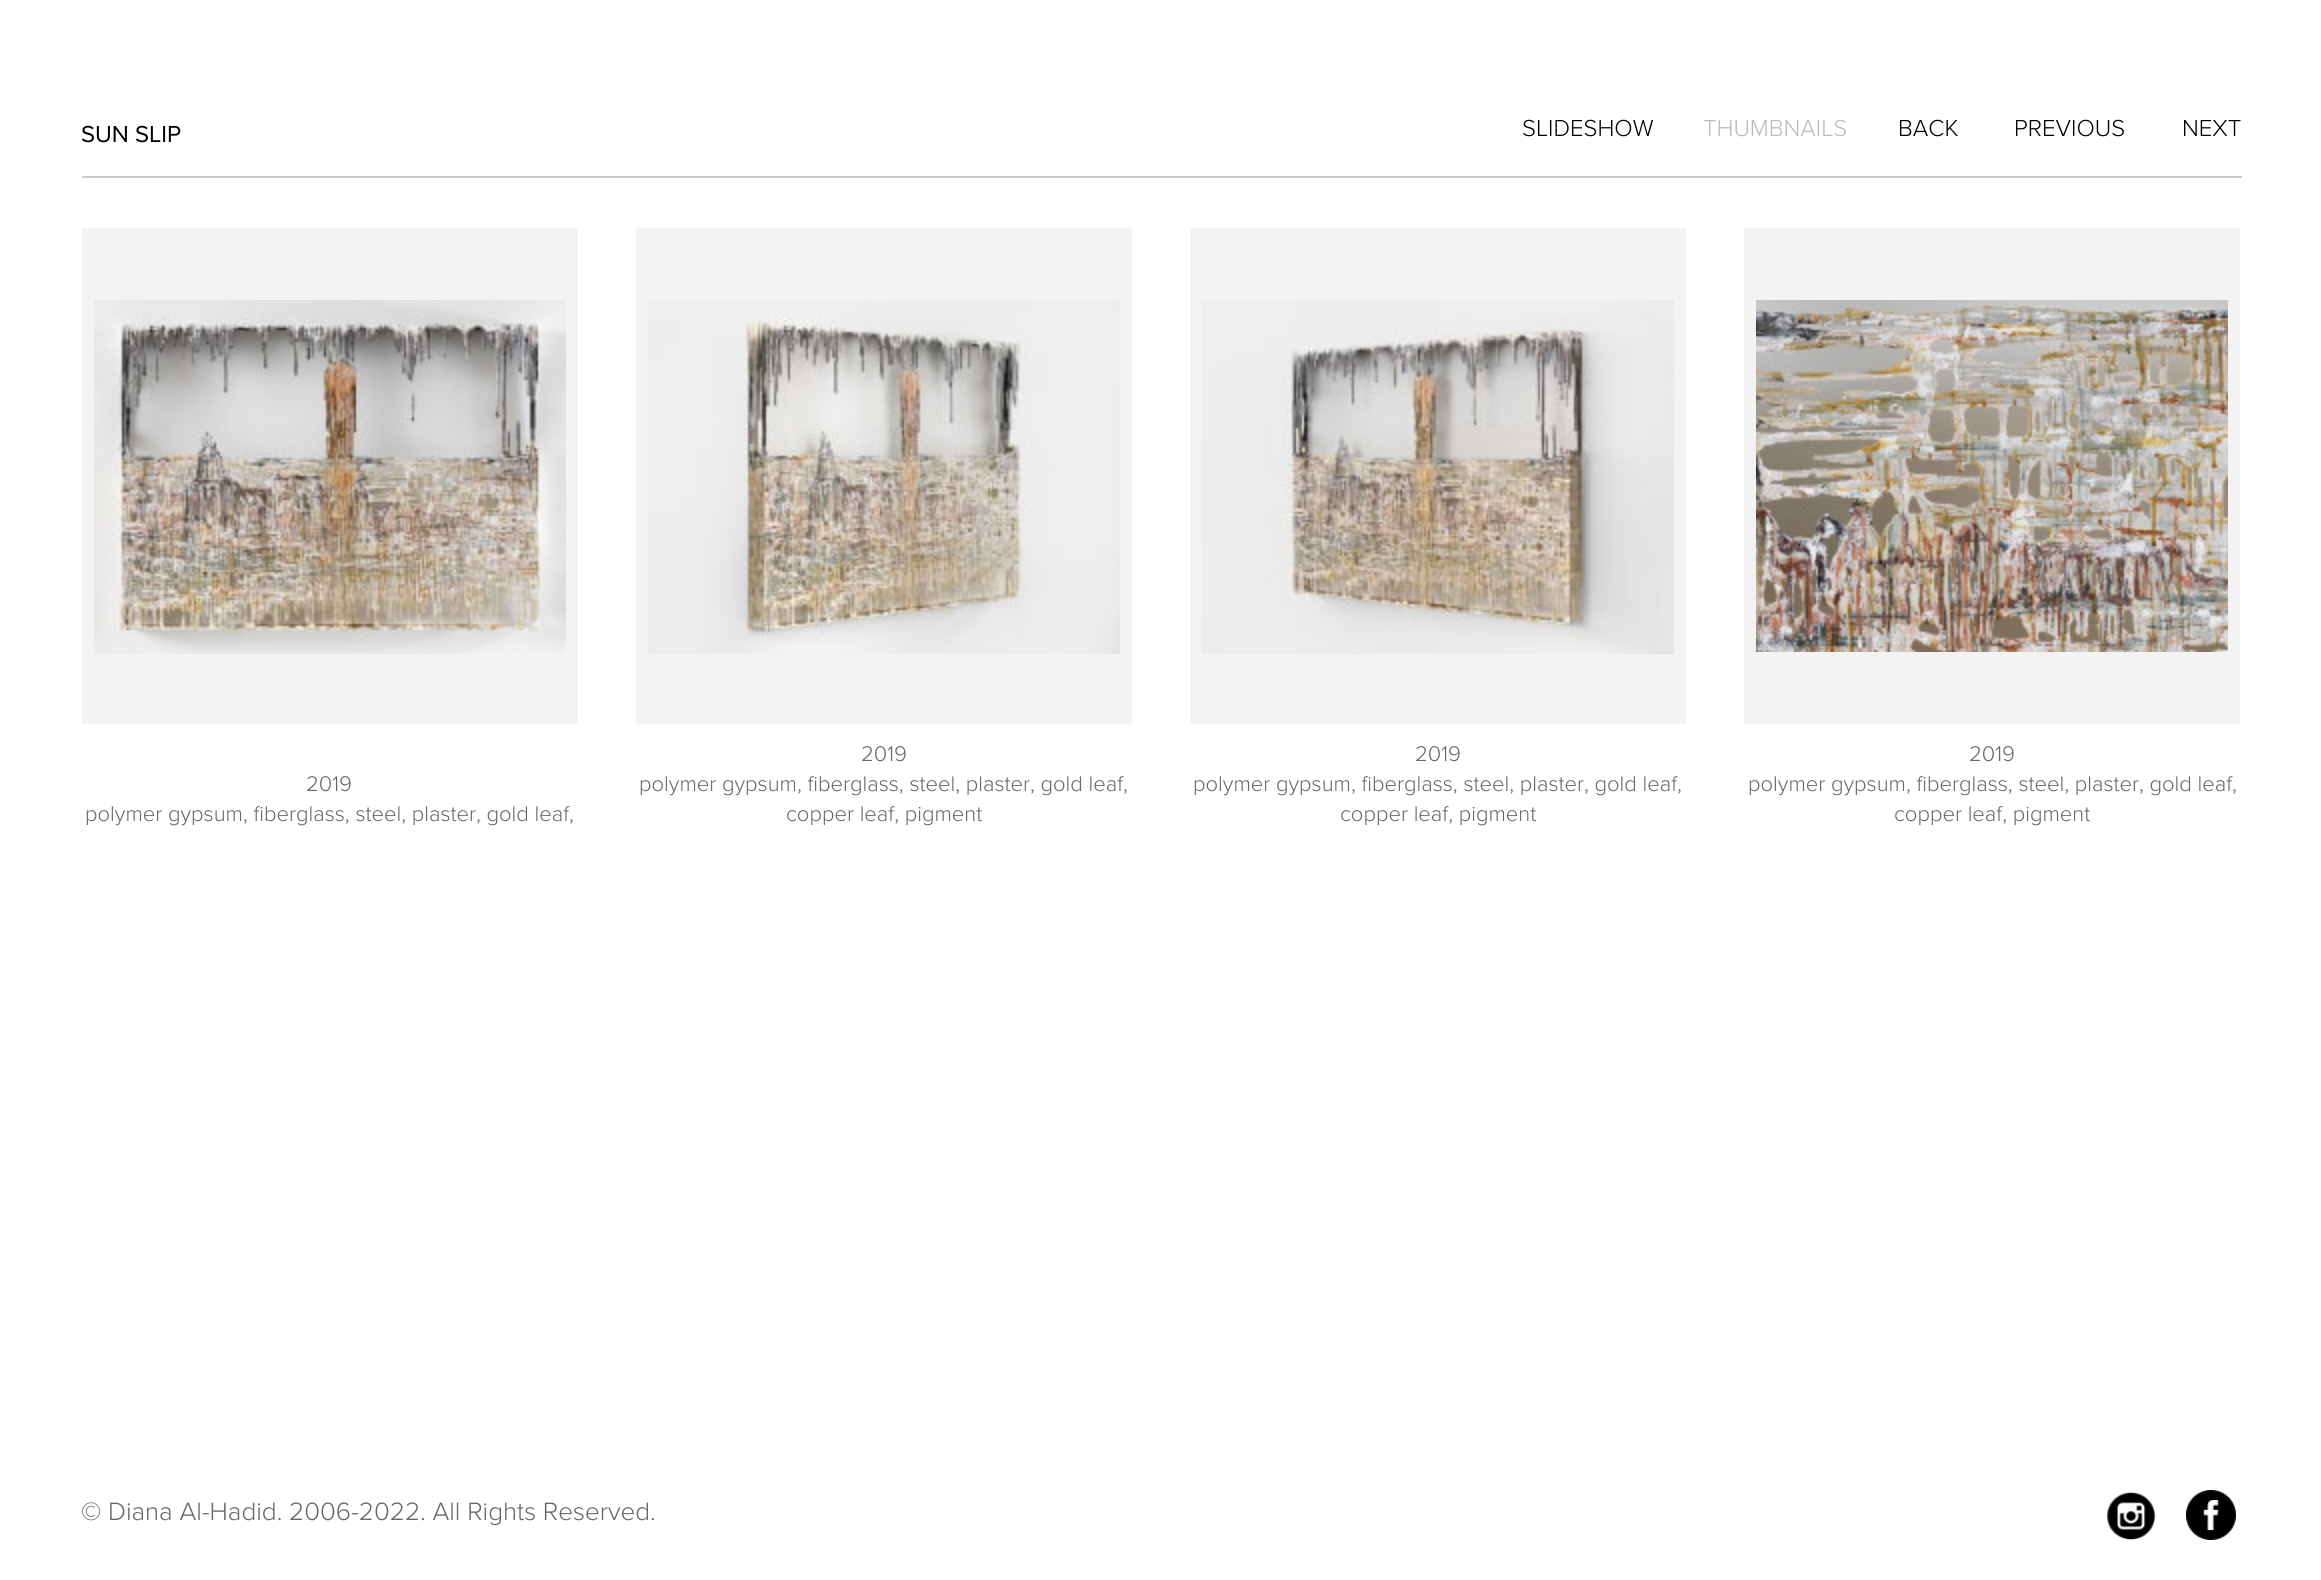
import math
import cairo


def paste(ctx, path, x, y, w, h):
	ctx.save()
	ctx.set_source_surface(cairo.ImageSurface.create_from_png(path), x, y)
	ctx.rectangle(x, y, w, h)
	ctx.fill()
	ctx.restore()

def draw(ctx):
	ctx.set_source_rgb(1, 1, 1)
	ctx.paint()
	ctx.set_source_rgb(0.8, 0.8, 0.8)
	ctx.rectangle(82, 176, 2160, 2)
	ctx.fill()
	ctx.select_font_face('Proxima Nova')
	ctx.set_font_size(24)
	ctx.set_source_rgb(0, 0, 0)
	ctx.move_to(81, 142)
	ctx.show_text('SUN SLIP')
	ctx.select_font_face('Proxima Nova Light')
	ctx.move_to(1522, 136)
	ctx.show_text('SLIDESHOW')
	ctx.set_source_rgb(0.733, 0.733, 0.733)
	ctx.move_to(1703, 136)
	ctx.show_text('THUMBNAILS')
	ctx.set_source_rgb(0, 0, 0)
	for x, y, s in [
		(1898, 136, 'BACK'),
		(2014, 136, 'PREVIOUS'),
		(2182, 136, 'NEXT'),
	]:
		ctx.move_to(x, y)
		ctx.show_text(s)
	ctx.set_source_rgb(0.953, 0.953, 0.953)
	ctx.rectangle(82, 228, 496, 496)
	ctx.fill()
	paste(ctx, 'media/1.png', 94, 300, 472, 354)
	ctx.set_font_size(22)
	ctx.set_source_rgb(0.4, 0.4, 0.4)
	ctx.move_to(306, 791)
	ctx.show_text('2019')
	ctx.move_to(85, 821)
	ctx.show_text('polymer gypsum, fiberglass, steel, plaster, gold leaf,')
	ctx.set_source_rgb(0.953, 0.953, 0.953)
	ctx.rectangle(636, 228, 496, 496)
	ctx.fill()
	paste(ctx, 'media/2.png', 648, 300, 472, 354)
	ctx.set_source_rgb(0.4, 0.4, 0.4)
	for x, y, s in [
		(861, 761, '2019'),
		(639, 791, 'polymer gypsum, fiberglass, steel, plaster, gold leaf,'),
		(786, 821, 'copper leaf, pigment'),
	]:
		ctx.move_to(x, y)
		ctx.show_text(s)
	ctx.set_source_rgb(0.953, 0.953, 0.953)
	ctx.rectangle(1190, 228, 496, 496)
	ctx.fill()
	paste(ctx, 'media/3.png', 1202, 300, 472, 354)
	ctx.set_source_rgb(0.4, 0.4, 0.4)
	for x, y, s in [
		(1415, 761, '2019'),
		(1193, 791, 'polymer gypsum, fiberglass, steel, plaster, gold leaf,'),
		(1340, 821, 'copper leaf, pigment'),
	]:
		ctx.move_to(x, y)
		ctx.show_text(s)
	ctx.set_source_rgb(0.953, 0.953, 0.953)
	ctx.rectangle(1744, 228, 496, 496)
	ctx.fill()
	paste(ctx, 'media/4.png', 1756, 300, 472, 352)
	ctx.set_source_rgb(0.4, 0.4, 0.4)
	for x, y, s in [
		(1969, 761, '2019'),
		(1748, 791, 'polymer gypsum, fiberglass, steel, plaster, gold leaf,'),
		(1894, 821, 'copper leaf, pigment'),
	]:
		ctx.move_to(x, y)
		ctx.show_text(s)
	ctx.set_font_size(26)
	ctx.move_to(81, 1520)
	ctx.show_text('© Diana Al-Hadid. 2006-2022. All Rights Reserved.')
	paste(ctx, 'media/5.png', 2106, 1492, 50, 48)
	paste(ctx, 'media/6.png', 2186, 1490, 50, 50)


surface = cairo.ImageSurface(cairo.FORMAT_RGB24, 2321, 1580)
ctx = cairo.Context(surface)
options = cairo.FontOptions()
options.set_hint_metrics(cairo.HINT_METRICS_OFF)
options.set_hint_style(cairo.HINT_STYLE_NONE)
ctx.set_font_options(options)
ctx.set_miter_limit(4)
draw(ctx)
surface.write_to_png('image.png')
